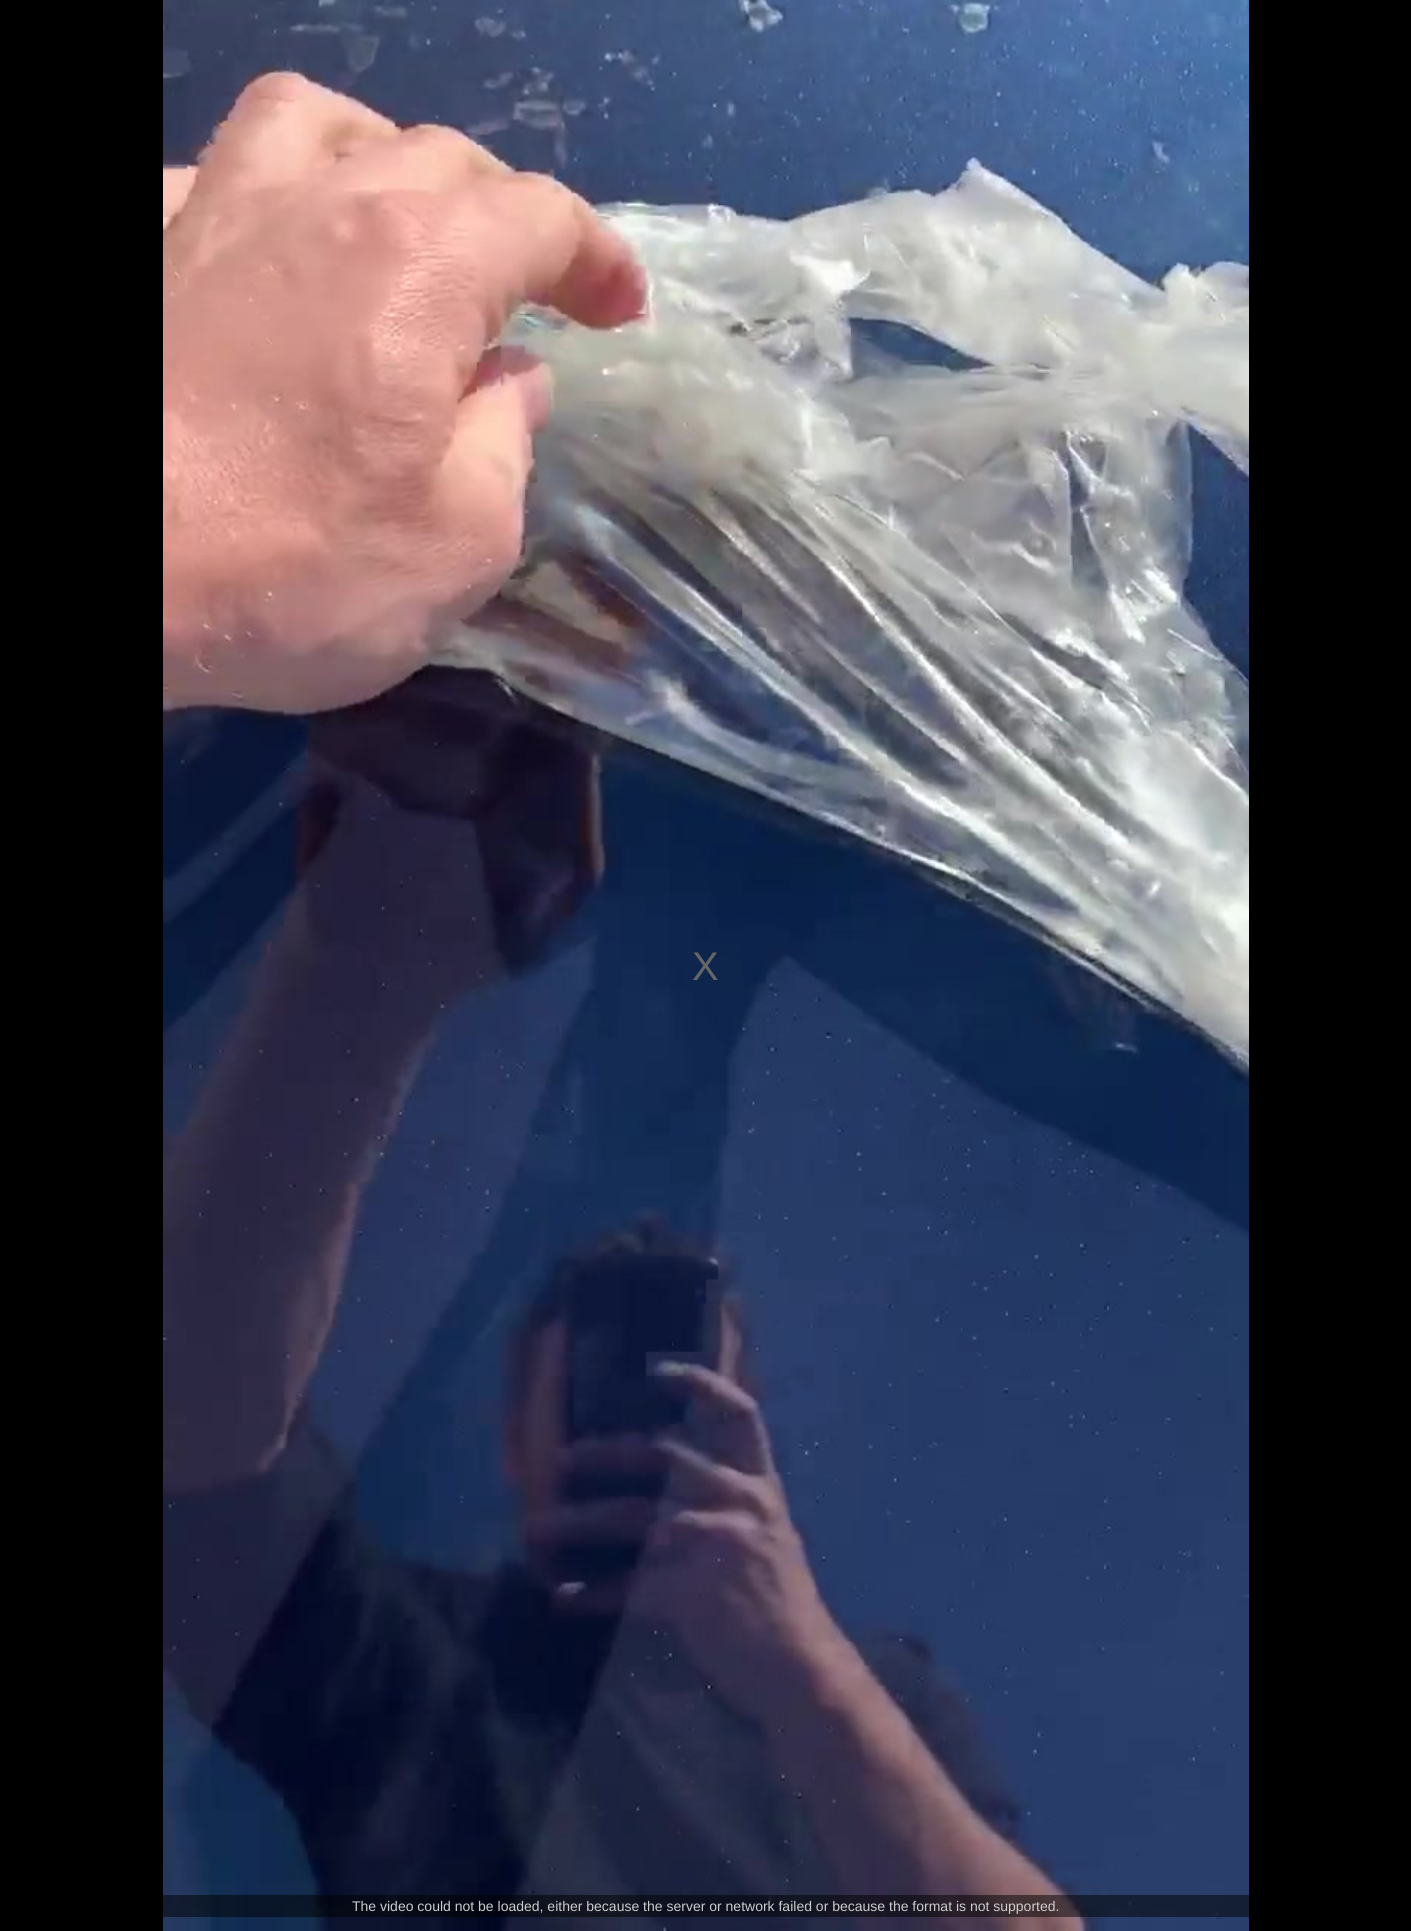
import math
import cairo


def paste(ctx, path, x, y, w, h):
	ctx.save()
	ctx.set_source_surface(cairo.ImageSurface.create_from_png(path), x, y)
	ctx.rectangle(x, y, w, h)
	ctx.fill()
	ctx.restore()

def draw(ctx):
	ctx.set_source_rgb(0, 0, 0)
	ctx.paint()
	paste(ctx, 'media/1.png', 163, 0, 1086, 1931)
	ctx.select_font_face('Liberation Sans')
	ctx.set_font_size(40)
	ctx.set_source_rgb(0.4, 0.4, 0.4)
	ctx.move_to(692, 980)
	ctx.show_text('X')
	ctx.set_source_rgba(0, 0, 0, 0.5)
	ctx.rectangle(163, 1895, 1086, 22)
	ctx.fill()
	ctx.set_font_size(14)
	ctx.set_source_rgb(0.8, 0.8, 0.8)
	ctx.move_to(352, 1911)
	ctx.show_text('The video could not be loaded, either because the server or network failed or because the format is not supported.')


surface = cairo.ImageSurface(cairo.FORMAT_RGB24, 1411, 1931)
ctx = cairo.Context(surface)
options = cairo.FontOptions()
options.set_hint_metrics(cairo.HINT_METRICS_OFF)
options.set_hint_style(cairo.HINT_STYLE_NONE)
ctx.set_font_options(options)
ctx.set_miter_limit(4)
draw(ctx)
surface.write_to_png('image.png')
